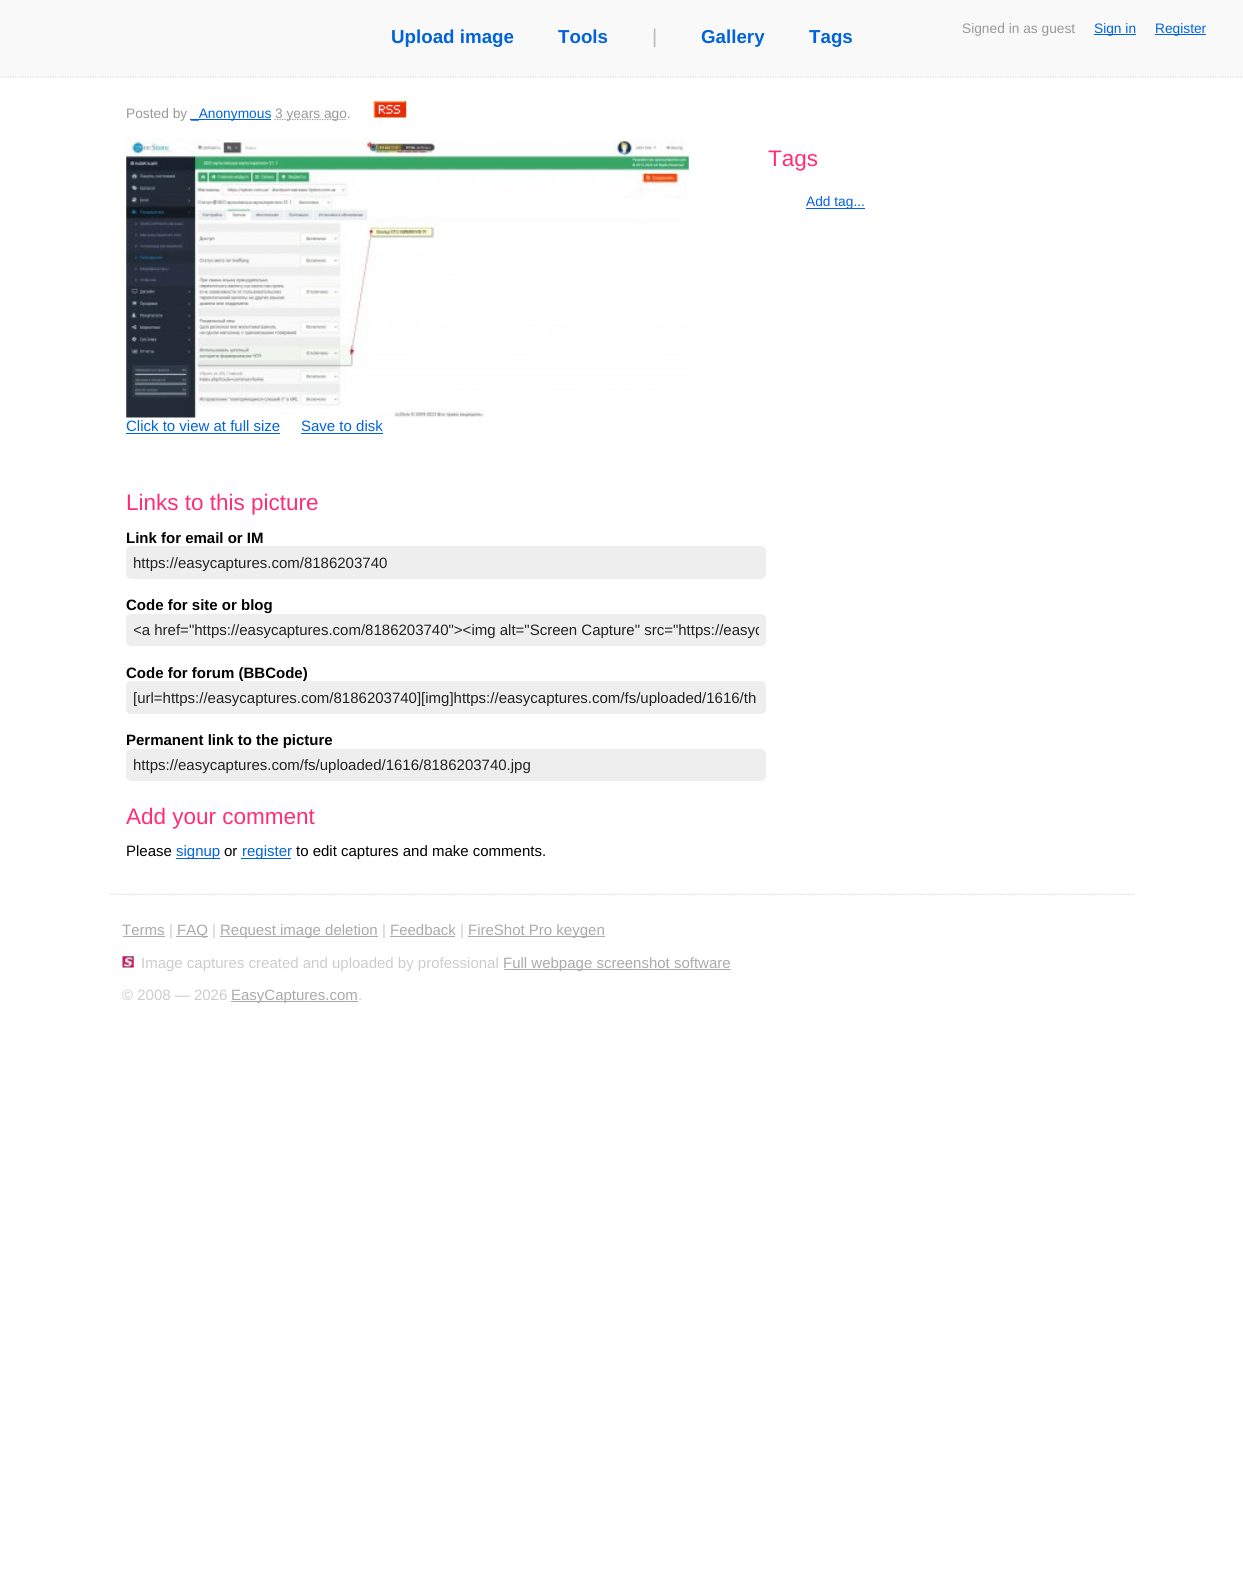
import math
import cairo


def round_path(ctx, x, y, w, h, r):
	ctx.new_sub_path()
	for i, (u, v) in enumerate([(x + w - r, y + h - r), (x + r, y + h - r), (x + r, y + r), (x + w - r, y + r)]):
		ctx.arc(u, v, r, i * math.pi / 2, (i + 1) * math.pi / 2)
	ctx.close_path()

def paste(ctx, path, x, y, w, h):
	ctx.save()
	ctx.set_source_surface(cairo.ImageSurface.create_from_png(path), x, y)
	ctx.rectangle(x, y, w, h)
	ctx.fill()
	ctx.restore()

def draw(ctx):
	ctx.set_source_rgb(1, 1, 1)
	ctx.paint()
	ctx.set_source_rgb(0.973, 0.973, 0.973)
	ctx.rectangle(0, 0, 1243, 78)
	ctx.fill()
	paste(ctx, 'media/1.png', 0, 76, 1243, 2)
	ctx.select_font_face('Liberation Sans', cairo.FONT_SLANT_NORMAL, cairo.FONT_WEIGHT_BOLD)
	ctx.set_font_size(18.75)
	ctx.set_source_rgb(0, 0.388, 0.863)
	ctx.move_to(391, 43)
	ctx.show_text('Upload image')
	ctx.move_to(558, 43)
	ctx.show_text('Tools')
	ctx.select_font_face('Liberation Sans')
	ctx.set_font_size(20)
	ctx.set_source_rgb(0.733, 0.733, 0.733)
	ctx.move_to(652, 43)
	ctx.show_text('|')
	ctx.select_font_face('Liberation Sans', cairo.FONT_SLANT_NORMAL, cairo.FONT_WEIGHT_BOLD)
	ctx.set_font_size(18.75)
	ctx.set_source_rgb(0, 0.388, 0.863)
	ctx.move_to(701, 43)
	ctx.show_text('Gallery')
	ctx.move_to(809, 43)
	ctx.show_text('Tags')
	ctx.select_font_face('Liberation Sans')
	ctx.set_font_size(13.75)
	ctx.set_source_rgb(0.6, 0.6, 0.6)
	ctx.move_to(962, 33)
	ctx.show_text('Signed in as guest')
	ctx.set_source_rgb(0, 0.388, 0.863)
	ctx.rectangle(1094, 34, 42, 1)
	ctx.fill()
	ctx.move_to(1094, 33)
	ctx.show_text('Sign in')
	ctx.rectangle(1155, 34, 51, 1)
	ctx.fill()
	ctx.move_to(1155, 33)
	ctx.show_text('Register')
	ctx.set_source_rgb(0.6, 0.6, 0.6)
	ctx.move_to(126, 118)
	ctx.show_text('Posted by')
	ctx.set_source_rgb(0, 0.388, 0.863)
	ctx.rectangle(190, 119, 81, 1)
	ctx.fill()
	ctx.move_to(191, 118)
	ctx.show_text('_Anonymous')
	ctx.new_path()
	ctx.move_to(274.5, 119.5)
	ctx.line_to(346.5, 119.5)
	ctx.set_source_rgb(0.6, 0.6, 0.6)
	ctx.set_line_width(1.2)
	ctx.set_dash([1.25, 1.25])
	ctx.stroke()
	ctx.move_to(275, 118)
	ctx.show_text('3 years ago.')
	paste(ctx, 'media/2.png', 373, 101, 34, 17)
	paste(ctx, 'media/3.png', 126, 138, 563, 280)
	ctx.set_font_size(15)
	ctx.set_source_rgb(0, 0.388, 0.863)
	ctx.move_to(126, 431)
	ctx.show_text('Click to view at full size')
	ctx.rectangle(126, 433, 154, 1)
	ctx.fill()
	ctx.move_to(301, 431)
	ctx.show_text('Save to disk')
	ctx.rectangle(301, 433, 82, 1)
	ctx.fill()
	ctx.set_font_size(22.5)
	ctx.set_source_rgb(1, 0.176, 0.467)
	ctx.move_to(126, 510)
	ctx.show_text('Links to this picture')
	ctx.select_font_face('Liberation Sans', cairo.FONT_SLANT_NORMAL, cairo.FONT_WEIGHT_BOLD)
	ctx.set_font_size(15)
	ctx.set_source_rgb(0, 0, 0)
	ctx.move_to(126, 543)
	ctx.show_text('Link for email or IM')
	ctx.set_source_rgb(0.933, 0.933, 0.933)
	round_path(ctx, 126, 546, 640, 33, 5)
	ctx.fill()
	ctx.save()
	ctx.rectangle(134, 554, 625, 17)
	ctx.clip()
	ctx.select_font_face('Liberation Sans')
	ctx.set_source_rgb(0.133, 0.133, 0.133)
	ctx.move_to(133, 568)
	ctx.show_text('https://easycaptures.com/8186203740')
	ctx.restore()
	ctx.set_source_rgb(0, 0, 0)
	ctx.move_to(126, 610)
	ctx.show_text('Code for site or blog')
	ctx.set_source_rgb(0.933, 0.933, 0.933)
	round_path(ctx, 126, 614, 640, 32, 5)
	ctx.fill()
	ctx.save()
	ctx.rectangle(134, 621, 625, 18)
	ctx.clip()
	ctx.select_font_face('Liberation Sans')
	ctx.set_source_rgb(0.133, 0.133, 0.133)
	ctx.move_to(133, 635)
	ctx.show_text('<a href="https://easycaptures.com/8186203740"><img alt="Screen Capture" src="https://easyc')
	ctx.restore()
	ctx.set_source_rgb(0, 0, 0)
	ctx.move_to(126, 678)
	ctx.show_text('Code for forum (BBCode)')
	ctx.set_source_rgb(0.933, 0.933, 0.933)
	round_path(ctx, 126, 681, 640, 33, 5)
	ctx.fill()
	ctx.save()
	ctx.rectangle(134, 689, 625, 17)
	ctx.clip()
	ctx.select_font_face('Liberation Sans')
	ctx.set_source_rgb(0.133, 0.133, 0.133)
	ctx.move_to(133, 703)
	ctx.show_text('[url=https://easycaptures.com/8186203740][img]https://easycaptures.com/fs/uploaded/1616/th')
	ctx.restore()
	ctx.set_source_rgb(0, 0, 0)
	ctx.move_to(126, 745)
	ctx.show_text('Permanent link to the picture')
	ctx.set_source_rgb(0.933, 0.933, 0.933)
	round_path(ctx, 126, 749, 640, 32, 5)
	ctx.fill()
	ctx.select_font_face('Liberation Sans')
	ctx.set_source_rgb(0.133, 0.133, 0.133)
	ctx.move_to(133, 770)
	ctx.show_text('https://easycaptures.com/fs/uploaded/1616/8186203740.jpg')
	ctx.set_font_size(22.5)
	ctx.set_source_rgb(1, 0.176, 0.467)
	ctx.move_to(126, 824)
	ctx.show_text('Add your comment')
	ctx.set_font_size(15)
	ctx.set_source_rgb(0, 0, 0)
	ctx.move_to(126, 856)
	ctx.show_text('Please')
	ctx.set_source_rgb(0, 0.388, 0.863)
	ctx.rectangle(176, 858, 44, 1)
	ctx.fill()
	ctx.move_to(176, 856)
	ctx.show_text('signup')
	ctx.set_source_rgb(0, 0, 0)
	ctx.move_to(224, 856)
	ctx.show_text('or')
	ctx.set_source_rgb(0, 0.388, 0.863)
	ctx.rectangle(241, 858, 50, 1)
	ctx.fill()
	ctx.move_to(242, 856)
	ctx.show_text('register')
	ctx.set_source_rgb(0, 0, 0)
	ctx.move_to(296, 856)
	ctx.show_text('to edit captures and make comments.')
	ctx.set_font_size(22.5)
	ctx.set_source_rgb(1, 0.176, 0.467)
	ctx.move_to(768, 166)
	ctx.show_text('Tags')
	ctx.set_source_rgb(0, 0.388, 0.863)
	ctx.rectangle(806, 208, 59, 1)
	ctx.fill()
	ctx.set_font_size(13.75)
	ctx.move_to(806, 206)
	ctx.show_text('Add tag...')
	paste(ctx, 'media/4.png', 110, 893, 1024, 2)
	ctx.set_font_size(15)
	ctx.set_source_rgb(0.667, 0.667, 0.667)
	ctx.move_to(122, 935)
	ctx.show_text('Terms')
	ctx.rectangle(123, 936, 42, 1)
	ctx.fill()
	ctx.set_source_rgb(0.8, 0.8, 0.8)
	ctx.move_to(169, 935)
	ctx.show_text('|')
	ctx.set_source_rgb(0.667, 0.667, 0.667)
	ctx.rectangle(176, 936, 32, 1)
	ctx.fill()
	ctx.move_to(177, 935)
	ctx.show_text('FAQ')
	ctx.set_source_rgb(0.8, 0.8, 0.8)
	ctx.move_to(212, 935)
	ctx.show_text('|')
	ctx.set_source_rgb(0.667, 0.667, 0.667)
	ctx.rectangle(220, 936, 158, 1)
	ctx.fill()
	ctx.move_to(220, 935)
	ctx.show_text('Request image deletion')
	ctx.set_source_rgb(0.8, 0.8, 0.8)
	ctx.move_to(382, 935)
	ctx.show_text('|')
	ctx.set_source_rgb(0.667, 0.667, 0.667)
	ctx.move_to(390, 935)
	ctx.show_text('Feedback')
	ctx.rectangle(390, 936, 65, 1)
	ctx.fill()
	ctx.set_source_rgb(0.8, 0.8, 0.8)
	ctx.move_to(460, 935)
	ctx.show_text('|')
	ctx.set_source_rgb(0.667, 0.667, 0.667)
	ctx.rectangle(468, 936, 137, 1)
	ctx.fill()
	ctx.move_to(468, 935)
	ctx.show_text('FireShot Pro keygen')
	paste(ctx, 'media/5.png', 122, 956, 12, 12)
	ctx.set_source_rgb(0.8, 0.8, 0.8)
	ctx.move_to(141, 968)
	ctx.show_text('Image captures created and uploaded by professional')
	ctx.set_source_rgb(0.667, 0.667, 0.667)
	ctx.rectangle(504, 969, 227, 1)
	ctx.fill()
	ctx.move_to(503, 968)
	ctx.show_text('Full webpage screenshot software')
	ctx.set_source_rgb(0.8, 0.8, 0.8)
	ctx.move_to(122, 1000)
	ctx.show_text('© 2008 — 2026')
	ctx.set_source_rgb(0.667, 0.667, 0.667)
	ctx.rectangle(231, 1001, 127, 1)
	ctx.fill()
	ctx.move_to(231, 1000)
	ctx.show_text('EasyCaptures.com')
	ctx.set_source_rgb(0.8, 0.8, 0.8)
	ctx.move_to(358, 1000)
	ctx.show_text('.')


surface = cairo.ImageSurface(cairo.FORMAT_RGB24, 1243, 1588)
ctx = cairo.Context(surface)
options = cairo.FontOptions()
options.set_hint_metrics(cairo.HINT_METRICS_OFF)
options.set_hint_style(cairo.HINT_STYLE_NONE)
ctx.set_font_options(options)
ctx.set_miter_limit(4)
draw(ctx)
surface.write_to_png('image.png')
